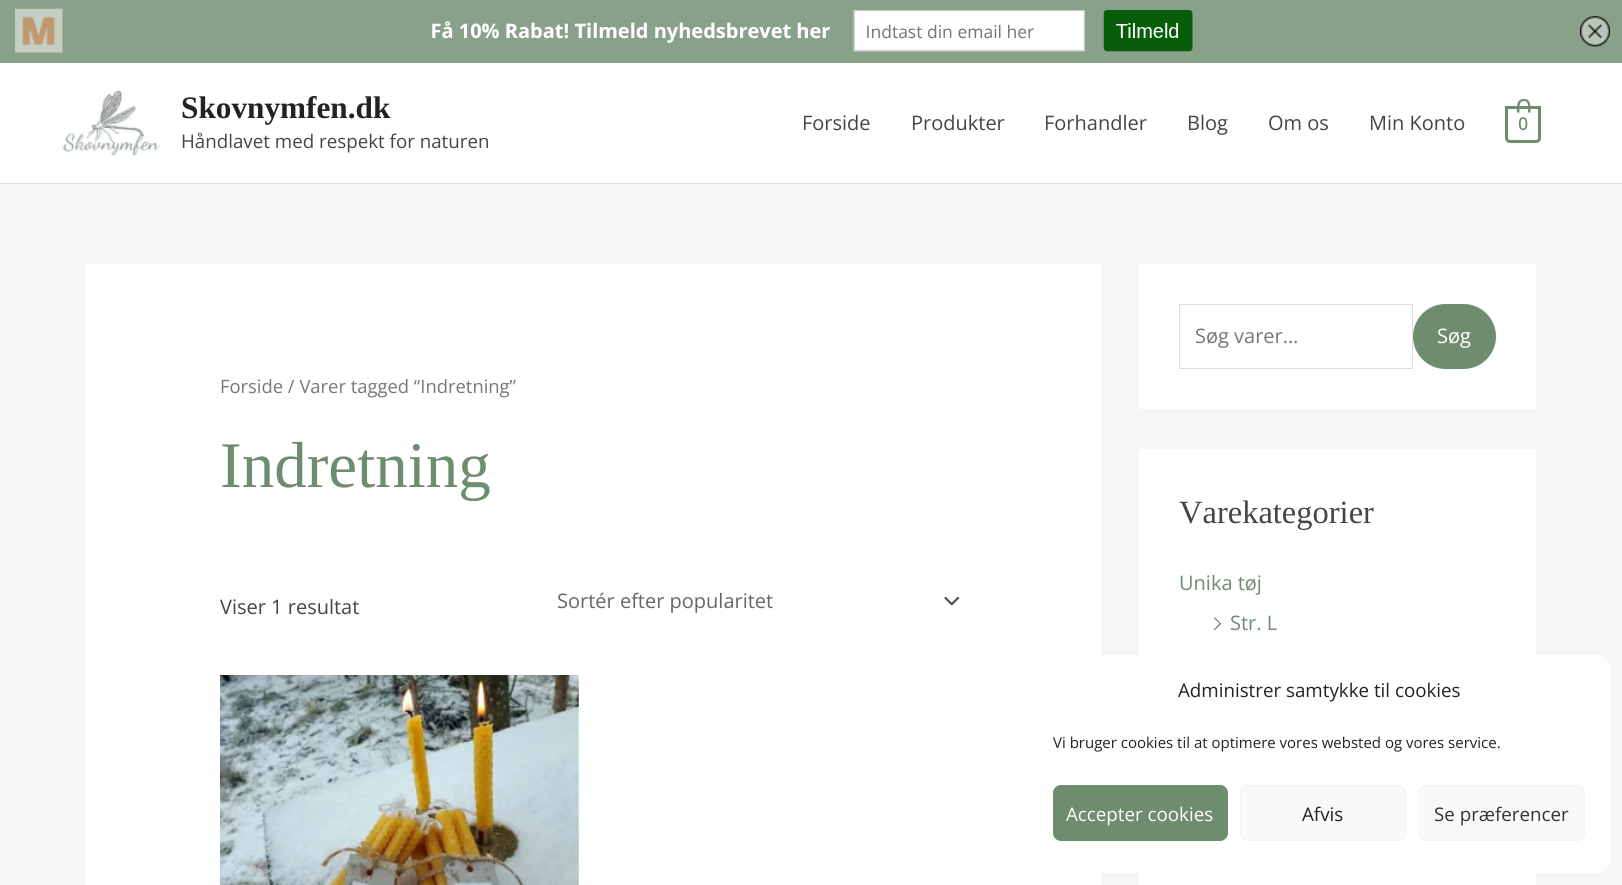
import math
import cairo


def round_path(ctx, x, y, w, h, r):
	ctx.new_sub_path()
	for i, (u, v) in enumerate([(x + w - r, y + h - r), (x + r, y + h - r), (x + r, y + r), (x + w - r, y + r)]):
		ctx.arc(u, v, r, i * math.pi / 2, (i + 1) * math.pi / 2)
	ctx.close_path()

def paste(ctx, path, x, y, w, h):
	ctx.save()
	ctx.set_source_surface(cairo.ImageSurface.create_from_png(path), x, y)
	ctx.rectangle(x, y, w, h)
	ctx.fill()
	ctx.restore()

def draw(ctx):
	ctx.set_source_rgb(0.961, 0.961, 0.961)
	ctx.paint()
	paste(ctx, 'media/1.png', 0, 0, 1622, 63)
	ctx.set_source_rgb(1, 1, 1)
	ctx.rectangle(0, 63, 1622, 120)
	ctx.fill()
	ctx.set_source_rgb(0.867, 0.867, 0.867)
	ctx.rectangle(0, 183, 1622, 1)
	ctx.fill()
	paste(ctx, 'media/2.png', 61, 90, 100, 65)
	ctx.select_font_face('Liberation Serif', cairo.FONT_SLANT_NORMAL, cairo.FONT_WEIGHT_BOLD)
	ctx.set_font_size(31.25)
	ctx.set_source_rgb(0.133, 0.133, 0.133)
	ctx.move_to(181, 118)
	ctx.show_text('Skovnymfen.dk')
	ctx.select_font_face('Open Sans')
	ctx.set_font_size(18.75)
	ctx.set_source_rgb(0.271, 0.271, 0.271)
	ctx.move_to(181, 148)
	ctx.show_text('Håndlavet med respekt for naturen')
	ctx.set_font_size(20)
	for x, y, s in [
		(802, 130, 'Forside'),
		(911, 130, 'Produkter'),
		(1044, 130, 'Forhandler'),
		(1187, 130, 'Blog'),
		(1268, 130, 'Om os'),
		(1369, 130, 'Min Konto'),
	]:
		ctx.move_to(x, y)
		ctx.show_text(s)
	ctx.new_path()
	ctx.move_to(1506.5, 107.5)
	ctx.line_to(1539.5, 107.5)
	ctx.line_to(1539.5, 138)
	ctx.curve_to(1539.5, 140, 1538, 141.5, 1536, 141.5)
	ctx.line_to(1510, 141.5)
	ctx.curve_to(1508, 141.5, 1506.5, 140, 1506.5, 138)
	ctx.close_path()
	ctx.set_source_rgb(0.431, 0.553, 0.431)
	ctx.set_line_width(3)
	ctx.stroke()
	ctx.set_fill_rule(cairo.FILL_RULE_EVEN_ODD)
	ctx.new_path()
	ctx.move_to(1524, 99)
	ctx.curve_to(1531.5, 99, 1530.5, 107, 1530.5, 112.5)
	ctx.line_to(1517, 112.5)
	ctx.curve_to(1517, 107, 1516, 99, 1524, 99)
	ctx.close_path()
	ctx.move_to(1524, 101)
	ctx.curve_to(1529.5, 101, 1528, 109, 1528, 112.5)
	ctx.line_to(1519.5, 112.5)
	ctx.curve_to(1519.5, 109, 1518, 101, 1524, 101)
	ctx.close_path()
	ctx.fill()
	ctx.select_font_face('Open Sans', cairo.FONT_SLANT_NORMAL, cairo.FONT_WEIGHT_BOLD)
	ctx.set_font_size(17)
	ctx.move_to(1518, 130)
	ctx.show_text('0')
	ctx.set_source_rgb(1, 1, 1)
	ctx.rectangle(86, 264, 1015, 621)
	ctx.fill()
	ctx.select_font_face('Open Sans')
	ctx.set_font_size(18.4)
	ctx.set_source_rgb(0.467, 0.467, 0.467)
	ctx.move_to(220, 393)
	ctx.show_text('Forside / Varer tagged “Indretning”')
	ctx.select_font_face('Liberation Serif')
	ctx.set_font_size(65)
	ctx.set_source_rgb(0.431, 0.553, 0.431)
	ctx.move_to(220, 487)
	ctx.show_text('Indretning')
	ctx.select_font_face('Open Sans')
	ctx.set_font_size(20)
	ctx.set_source_rgb(0.271, 0.271, 0.271)
	ctx.move_to(220, 614)
	ctx.show_text('Viser 1 resultat')
	paste(ctx, 'media/3.png', 944, 596, 16, 9)
	ctx.set_source_rgb(0.4, 0.4, 0.4)
	ctx.move_to(557, 608)
	ctx.show_text('Sortér efter popularitet')
	paste(ctx, 'media/4.png', 220, 675, 359, 210)
	ctx.set_source_rgb(1, 1, 1)
	ctx.rectangle(1139, 264, 397, 145)
	ctx.fill()
	ctx.rectangle(1179.5, 304.5, 233, 64)
	ctx.set_source_rgb(0.867, 0.867, 0.867)
	ctx.set_line_width(1)
	ctx.stroke()
	ctx.set_source_rgb(0.467, 0.467, 0.467)
	ctx.move_to(1195, 343)
	ctx.show_text('Søg varer…')
	ctx.set_source_rgb(0.431, 0.553, 0.431)
	round_path(ctx, 1413, 304, 83, 65, 32.5)
	ctx.fill()
	ctx.set_source_rgb(1, 1, 1)
	ctx.move_to(1437, 343)
	ctx.show_text('Søg')
	ctx.rectangle(1139, 449, 397, 436)
	ctx.fill()
	ctx.select_font_face('Liberation Serif')
	ctx.set_font_size(32.5)
	ctx.set_source_rgb(0.271, 0.271, 0.271)
	ctx.move_to(1179, 523)
	ctx.show_text('Varekategorier')
	ctx.select_font_face('Open Sans')
	ctx.set_font_size(20)
	ctx.set_source_rgb(0.431, 0.553, 0.431)
	ctx.move_to(1179, 590)
	ctx.show_text('Unika tøj')
	paste(ctx, 'media/5.png', 1214, 617, 7, 13)
	ctx.move_to(1230, 630)
	ctx.show_text('Str. L')
	ctx.set_source_rgb(1, 1, 1)
	round_path(ctx, 1028, 655, 582, 218, 15)
	ctx.fill()
	ctx.set_font_size(18.75)
	ctx.set_source_rgb(0.133, 0.133, 0.133)
	ctx.move_to(1178, 697)
	ctx.show_text('Administrer samtykke til cookies')
	ctx.set_font_size(15)
	ctx.move_to(1053, 748)
	ctx.show_text('Vi bruger cookies til at optimere vores websted og vores service.')
	ctx.set_source_rgb(0.431, 0.553, 0.431)
	round_path(ctx, 1053.5, 785.5, 174, 55, 7.5)
	ctx.fill_preserve()
	ctx.stroke()
	ctx.set_font_size(18.75)
	ctx.set_source_rgb(1, 1, 1)
	ctx.move_to(1066, 821)
	ctx.show_text('Accepter cookies')
	ctx.set_source_rgb(0.976, 0.976, 0.976)
	round_path(ctx, 1240.5, 785.5, 165, 55, 7.5)
	ctx.fill_preserve()
	ctx.set_source_rgb(0.949, 0.949, 0.949)
	ctx.stroke()
	ctx.set_source_rgb(0.133, 0.133, 0.133)
	ctx.move_to(1302, 821)
	ctx.show_text('Afvis')
	ctx.set_source_rgb(0.976, 0.976, 0.976)
	round_path(ctx, 1419.5, 785.5, 165, 55, 7.5)
	ctx.fill_preserve()
	ctx.set_source_rgb(0.949, 0.949, 0.949)
	ctx.stroke()
	ctx.set_source_rgb(0.2, 0.2, 0.2)
	ctx.move_to(1434, 821)
	ctx.show_text('Se præferencer')


surface = cairo.ImageSurface(cairo.FORMAT_RGB24, 1622, 885)
ctx = cairo.Context(surface)
options = cairo.FontOptions()
options.set_hint_metrics(cairo.HINT_METRICS_OFF)
options.set_hint_style(cairo.HINT_STYLE_NONE)
ctx.set_font_options(options)
ctx.set_miter_limit(4)
draw(ctx)
surface.write_to_png('image.png')
